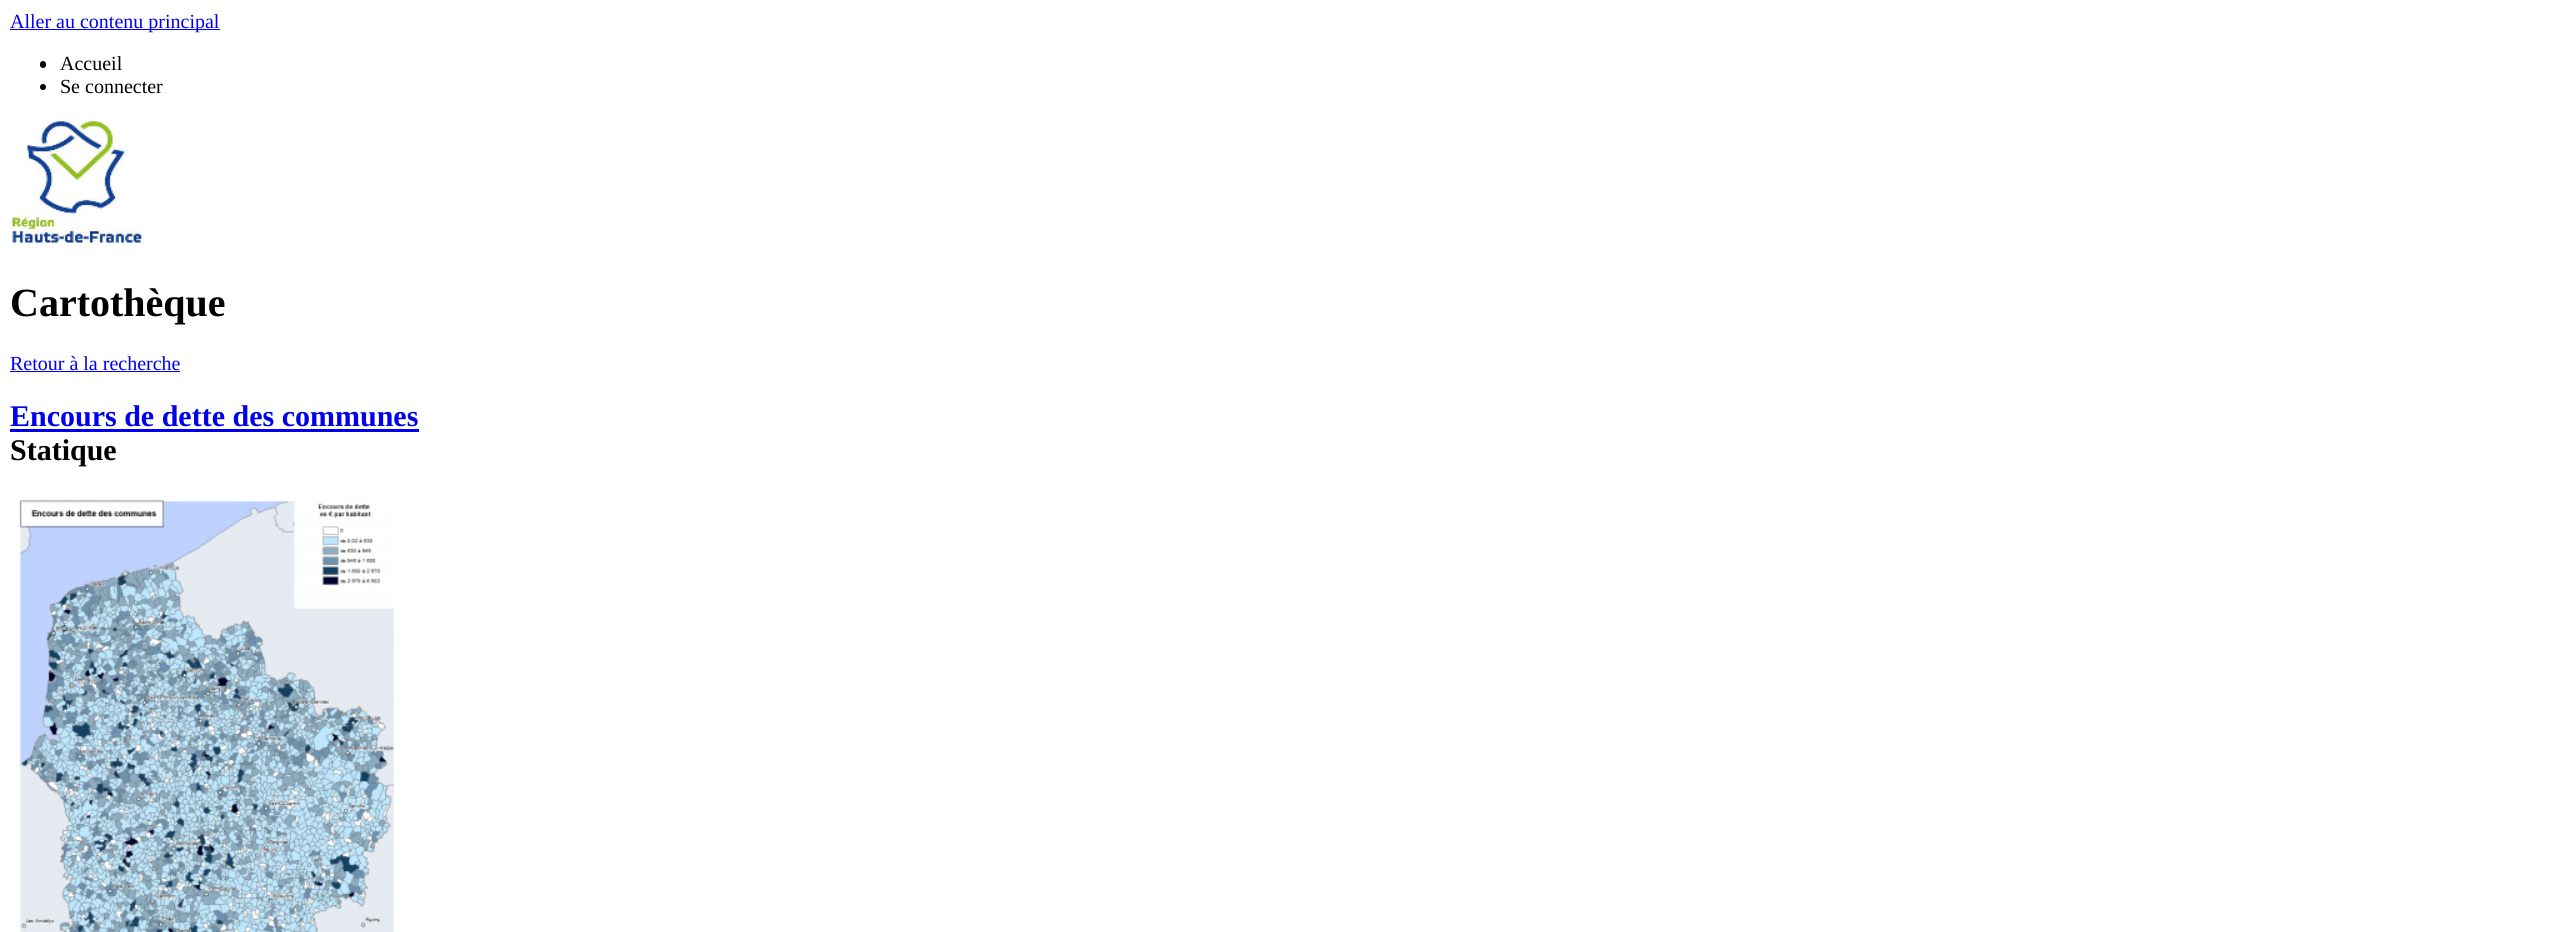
import math
import cairo


def round_path(ctx, x, y, w, h, r):
	ctx.new_sub_path()
	for i, (u, v) in enumerate([(x + w - r, y + h - r), (x + r, y + h - r), (x + r, y + r), (x + w - r, y + r)]):
		ctx.arc(u, v, r, i * math.pi / 2, (i + 1) * math.pi / 2)
	ctx.close_path()

def paste(ctx, path, x, y, w, h):
	ctx.save()
	ctx.set_source_surface(cairo.ImageSurface.create_from_png(path), x, y)
	ctx.rectangle(x, y, w, h)
	ctx.fill()
	ctx.restore()

def draw(ctx):
	ctx.set_source_rgb(1, 1, 1)
	ctx.paint()
	ctx.set_source_rgb(0, 0, 0.933)
	ctx.rectangle(10, 29, 210, 1)
	ctx.fill()
	ctx.select_font_face('Liberation Serif')
	ctx.set_font_size(20)
	ctx.move_to(10, 28)
	ctx.show_text('Aller au contenu principal')
	ctx.set_source_rgb(0, 0, 0)
	round_path(ctx, 40, 61, 6, 7, 3)
	ctx.fill()
	ctx.move_to(60, 70)
	ctx.show_text('Accueil')
	ctx.new_path()
	ctx.arc(43, 87, 3, 0, 2 * math.pi)
	ctx.fill()
	ctx.move_to(60, 93)
	ctx.show_text('Se connecter')
	paste(ctx, 'media/1.png', 11, 120, 133, 124)
	ctx.select_font_face('Liberation Serif', cairo.FONT_SLANT_NORMAL, cairo.FONT_WEIGHT_BOLD)
	ctx.set_font_size(40)
	ctx.move_to(10, 316)
	ctx.show_text('Cartothèque')
	ctx.select_font_face('Liberation Serif')
	ctx.set_font_size(20)
	ctx.set_source_rgb(0, 0, 0.933)
	ctx.move_to(10, 370)
	ctx.show_text('Retour à la recherche')
	ctx.rectangle(10, 371, 170, 1)
	ctx.fill()
	ctx.select_font_face('Liberation Serif', cairo.FONT_SLANT_NORMAL, cairo.FONT_WEIGHT_BOLD)
	ctx.set_font_size(30)
	ctx.move_to(10, 426)
	ctx.show_text('Encours de dette des communes')
	ctx.rectangle(10, 429, 409, 3)
	ctx.fill()
	ctx.set_source_rgb(0, 0, 0)
	ctx.move_to(10, 460)
	ctx.show_text('Statique')
	paste(ctx, 'media/2.png', 19, 499, 375, 433)


surface = cairo.ImageSurface(cairo.FORMAT_RGB24, 2561, 932)
ctx = cairo.Context(surface)
options = cairo.FontOptions()
options.set_hint_metrics(cairo.HINT_METRICS_OFF)
options.set_hint_style(cairo.HINT_STYLE_NONE)
ctx.set_font_options(options)
ctx.set_miter_limit(4)
draw(ctx)
surface.write_to_png('image.png')
